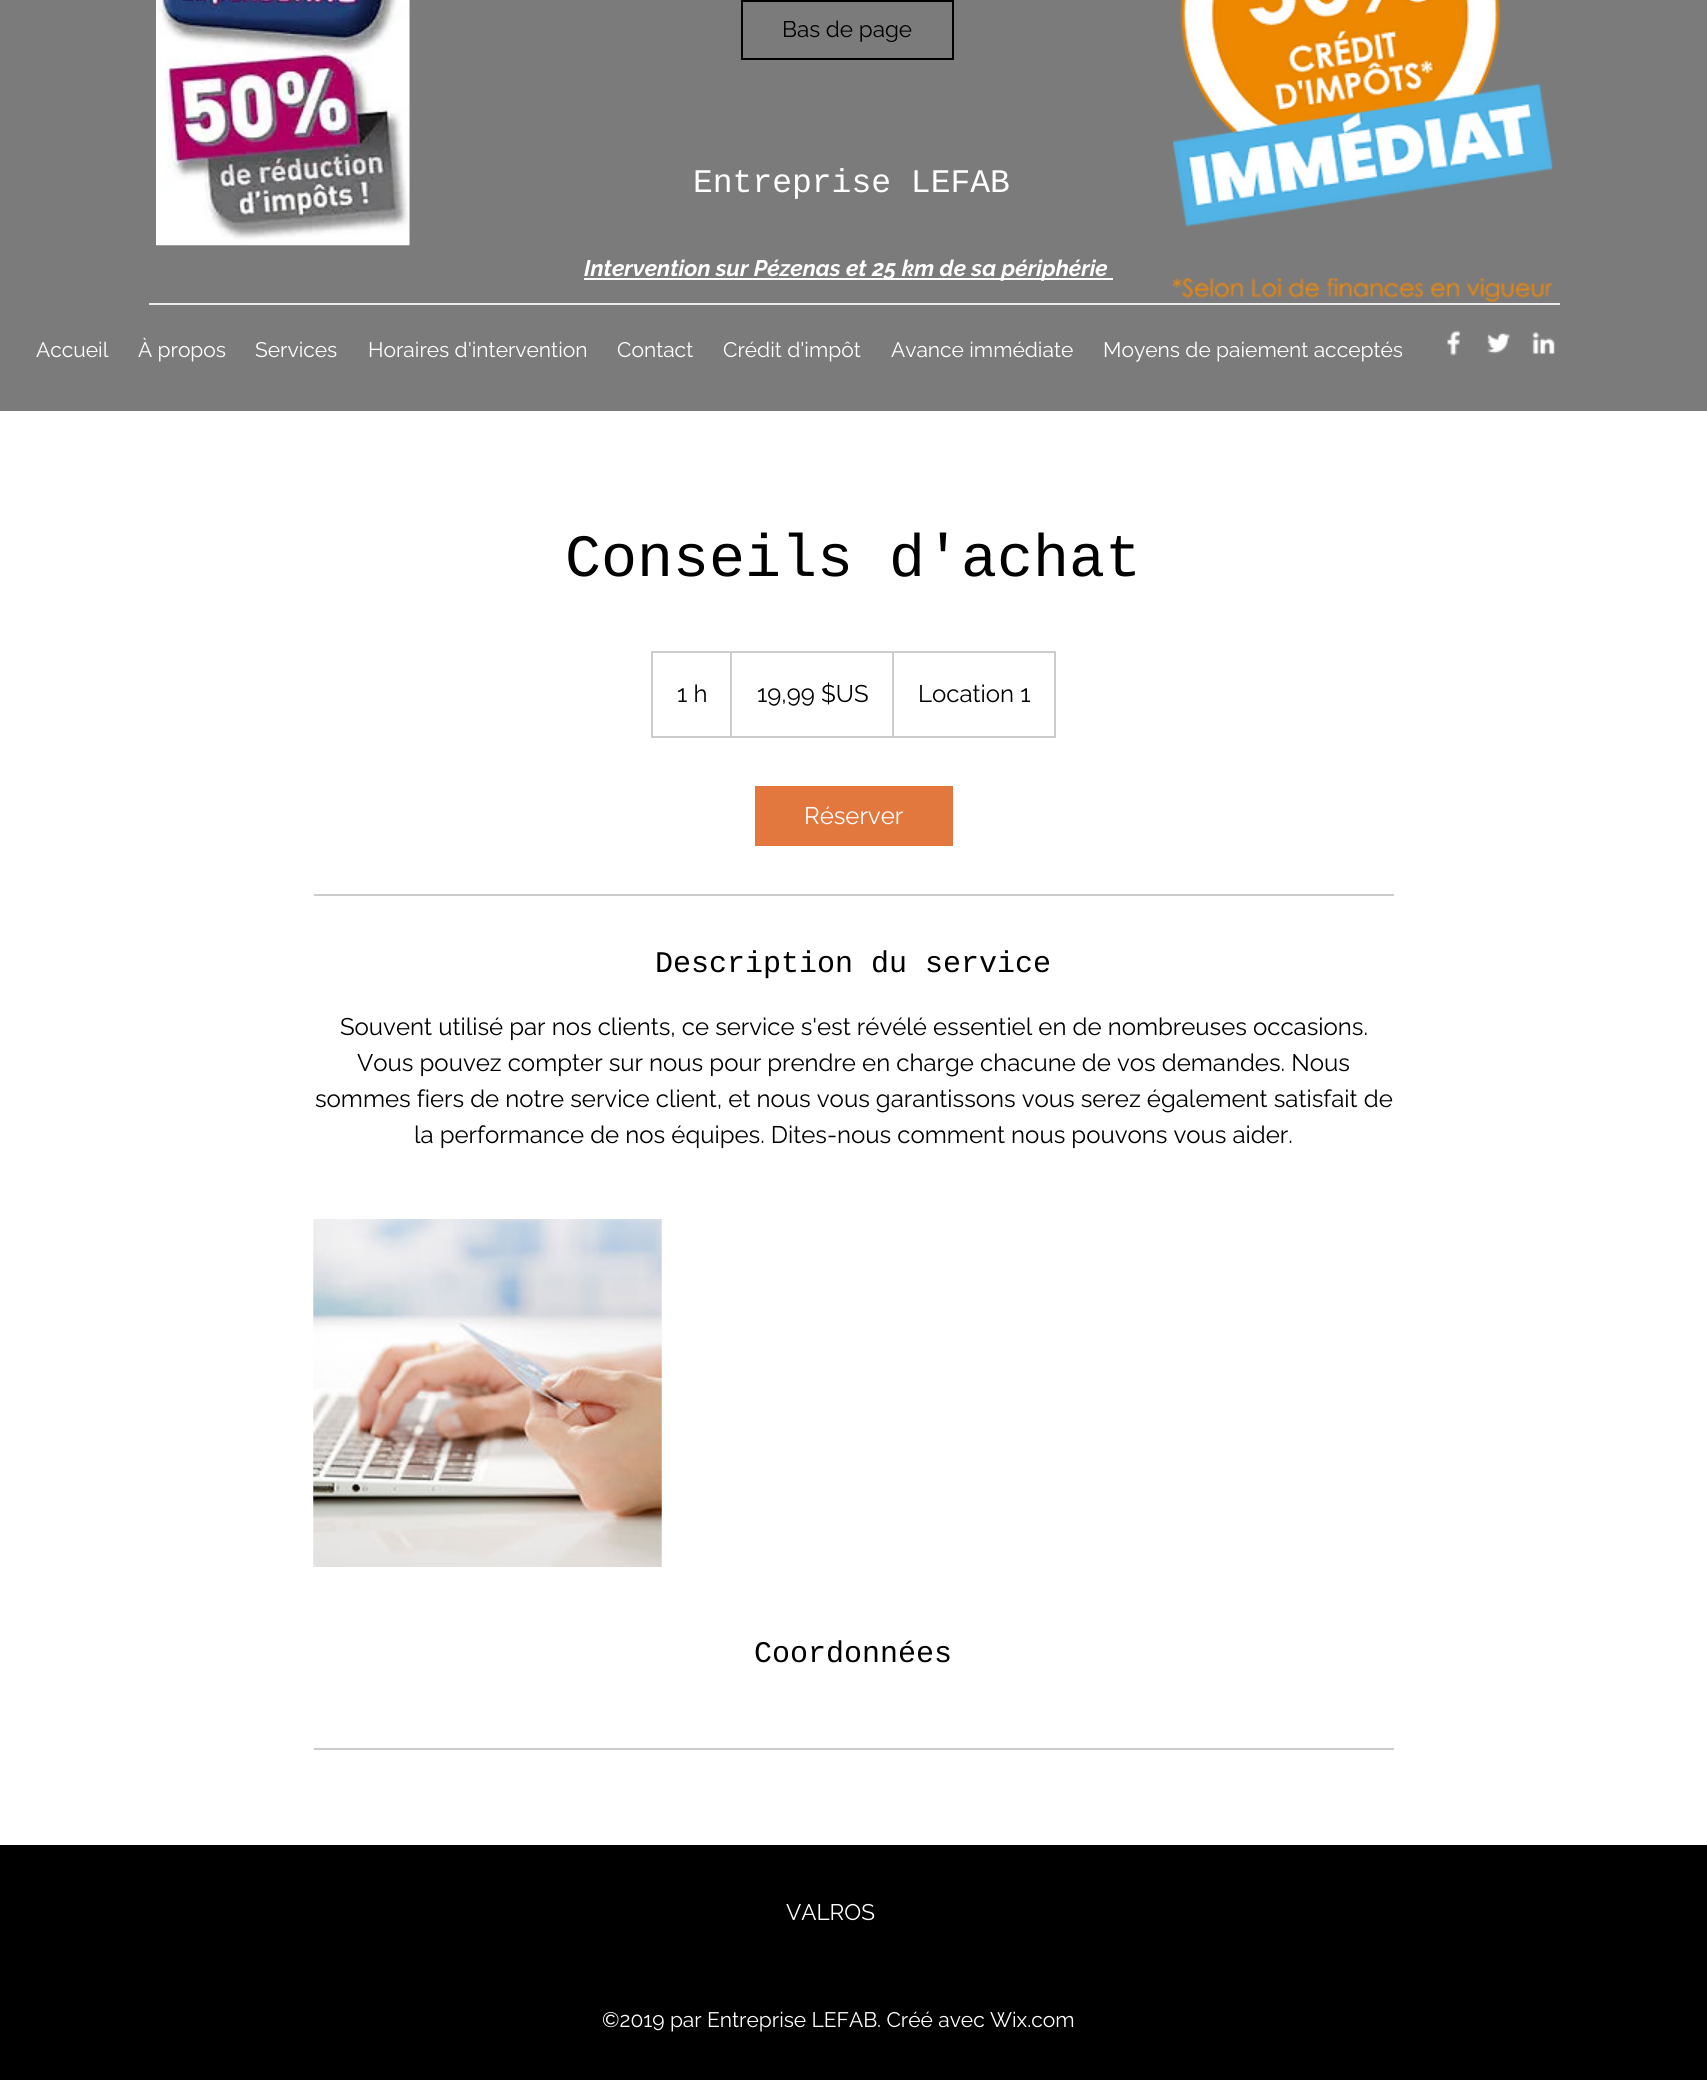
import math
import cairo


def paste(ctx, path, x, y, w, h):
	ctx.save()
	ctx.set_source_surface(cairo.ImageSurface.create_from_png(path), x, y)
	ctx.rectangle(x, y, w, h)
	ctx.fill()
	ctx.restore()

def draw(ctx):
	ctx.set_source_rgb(1, 1, 1)
	ctx.paint()
	ctx.set_source_rgb(0.482, 0.482, 0.482)
	ctx.rectangle(0, 0, 1707, 411)
	ctx.fill()
	paste(ctx, 'media/1.png', 156, 0, 254, 246)
	ctx.rectangle(742, 1, 211, 58)
	ctx.set_source_rgb(0, 0, 0)
	ctx.stroke()
	ctx.select_font_face('Raleway')
	ctx.set_font_size(22.5)
	ctx.move_to(782, 37)
	ctx.show_text('Bas de page')
	paste(ctx, 'media/2.png', 1173, 0, 380, 303)
	ctx.select_font_face('Liberation Mono')
	ctx.set_font_size(33)
	ctx.set_source_rgb(1, 1, 1)
	ctx.move_to(693, 192)
	ctx.show_text('Entreprise LEFAB')
	ctx.rectangle(584, 278, 529, 2)
	ctx.fill()
	ctx.select_font_face('Raleway', cairo.FONT_SLANT_ITALIC, cairo.FONT_WEIGHT_BOLD)
	ctx.set_font_size(22.5)
	ctx.move_to(584, 276)
	ctx.show_text('Intervention sur Pézenas et 25 km de sa périphérie')
	ctx.set_source_rgb(0.922, 0.922, 0.922)
	ctx.rectangle(149, 303, 1411, 2)
	ctx.fill()
	ctx.select_font_face('Raleway')
	ctx.set_font_size(21)
	ctx.set_source_rgb(1, 1, 1)
	for x, y, s in [
		(36, 357, 'Accueil'),
		(138, 357, 'À propos'),
		(255, 357, 'Services'),
		(368, 357, 'Horaires d\'intervention'),
		(617, 357, 'Contact'),
		(723, 357, 'Crédit d\'impôt'),
		(891, 357, 'Avance immédiate'),
		(1103, 357, 'Moyens de paiement acceptés'),
	]:
		ctx.move_to(x, y)
		ctx.show_text(s)
	paste(ctx, 'media/3.png', 1447, 330, 14, 26)
	paste(ctx, 'media/4.png', 1487, 332, 24, 22)
	paste(ctx, 'media/5.png', 1532, 332, 23, 23)
	ctx.select_font_face('Liberation Mono')
	ctx.set_font_size(60)
	ctx.set_source_rgb(0, 0, 0)
	ctx.move_to(565, 576)
	ctx.show_text('Conseils d\'achat')
	ctx.rectangle(652, 652, 403, 85)
	ctx.set_source_rgb(0.8, 0.8, 0.8)
	ctx.stroke()
	ctx.select_font_face('Raleway')
	ctx.set_font_size(24)
	ctx.set_source_rgb(0, 0, 0)
	ctx.move_to(677, 702)
	ctx.show_text('1 h')
	ctx.save()
	ctx.rectangle(653, 653, 402, 84)
	ctx.clip()
	ctx.set_source_rgb(0.8, 0.8, 0.8)
	ctx.new_path()
	ctx.move_to(730, 736)
	ctx.line_to(730, 651)
	ctx.line_to(732, 652)
	ctx.line_to(732, 736)
	ctx.close_path()
	ctx.fill()
	ctx.restore()
	ctx.move_to(757, 702)
	ctx.show_text('19,99 $US')
	ctx.save()
	ctx.rectangle(653, 653, 402, 84)
	ctx.clip()
	ctx.set_source_rgb(0.8, 0.8, 0.8)
	ctx.new_path()
	ctx.move_to(892, 736)
	ctx.line_to(892, 651)
	ctx.line_to(894, 652)
	ctx.line_to(894, 736)
	ctx.close_path()
	ctx.fill()
	ctx.restore()
	ctx.move_to(918, 702)
	ctx.show_text('Location 1')
	ctx.set_source_rgb(0.89, 0.471, 0.243)
	ctx.rectangle(755, 786, 198, 60)
	ctx.fill()
	ctx.set_source_rgb(1, 1, 1)
	ctx.move_to(804, 824)
	ctx.show_text('Réserver')
	ctx.set_source_rgb(0.8, 0.8, 0.8)
	ctx.rectangle(314, 894, 1080, 2)
	ctx.fill()
	ctx.select_font_face('Liberation Mono')
	ctx.set_font_size(30)
	ctx.set_source_rgb(0, 0, 0)
	ctx.move_to(655, 972)
	ctx.show_text('Description du service')
	ctx.select_font_face('Raleway')
	ctx.set_font_size(24)
	for x, y, s in [
		(340, 1035, 'Souvent utilisé par nos clients, ce service s\'est révélé essentiel en de nombreuses occasions.'),
		(357, 1071, 'Vous pouvez compter sur nous pour prendre en charge chacune de vos demandes. Nous'),
		(315, 1107, 'sommes fiers de notre service client, et nous vous garantissons vous serez également satisfait de'),
		(414, 1143, 'la performance de nos équipes. Dites-nous comment nous pouvons vous aider.'),
	]:
		ctx.move_to(x, y)
		ctx.show_text(s)
	paste(ctx, 'media/6.png', 313, 1219, 349, 348)
	paste(ctx, 'media/7.png', 313, 1219, 349, 348)
	ctx.select_font_face('Liberation Mono')
	ctx.set_font_size(30)
	ctx.move_to(754, 1662)
	ctx.show_text('Coordonnées')
	ctx.set_source_rgb(0.8, 0.8, 0.8)
	ctx.rectangle(314, 1748, 1080, 2)
	ctx.fill()
	ctx.set_source_rgb(0, 0, 0)
	ctx.rectangle(0, 1845, 1707, 235)
	ctx.fill()
	ctx.select_font_face('Raleway')
	ctx.set_font_size(22.5)
	ctx.set_source_rgb(1, 1, 1)
	ctx.move_to(786, 1920)
	ctx.show_text('VALROS')
	ctx.set_font_size(21)
	ctx.move_to(602, 2027)
	ctx.show_text('©2019 par Entreprise LEFAB. Créé avec Wix.com')


surface = cairo.ImageSurface(cairo.FORMAT_RGB24, 1707, 2080)
ctx = cairo.Context(surface)
options = cairo.FontOptions()
options.set_hint_metrics(cairo.HINT_METRICS_OFF)
options.set_hint_style(cairo.HINT_STYLE_NONE)
ctx.set_font_options(options)
ctx.set_miter_limit(4)
draw(ctx)
surface.write_to_png('image.png')
